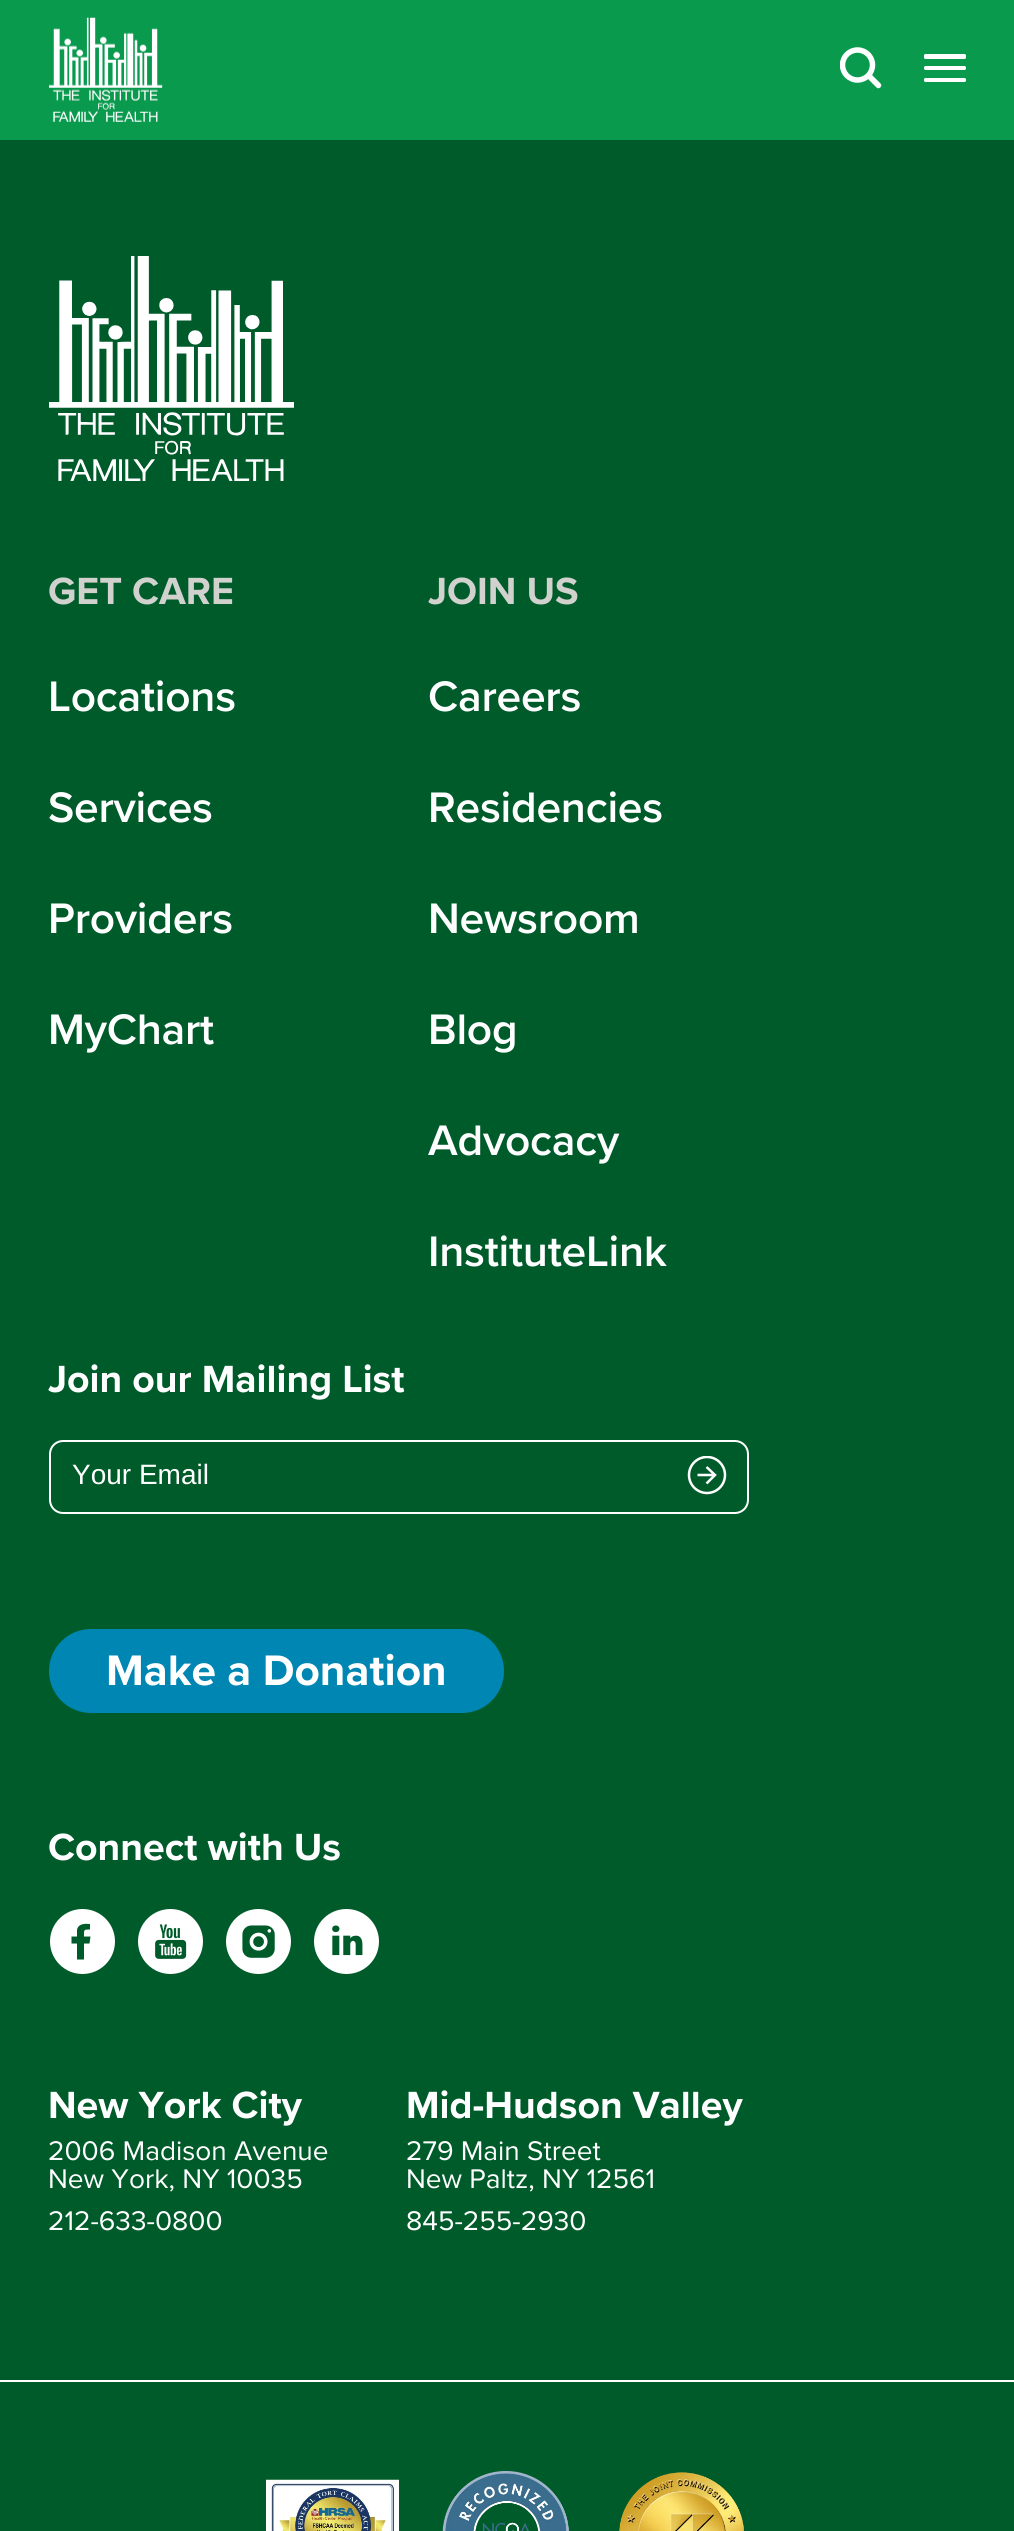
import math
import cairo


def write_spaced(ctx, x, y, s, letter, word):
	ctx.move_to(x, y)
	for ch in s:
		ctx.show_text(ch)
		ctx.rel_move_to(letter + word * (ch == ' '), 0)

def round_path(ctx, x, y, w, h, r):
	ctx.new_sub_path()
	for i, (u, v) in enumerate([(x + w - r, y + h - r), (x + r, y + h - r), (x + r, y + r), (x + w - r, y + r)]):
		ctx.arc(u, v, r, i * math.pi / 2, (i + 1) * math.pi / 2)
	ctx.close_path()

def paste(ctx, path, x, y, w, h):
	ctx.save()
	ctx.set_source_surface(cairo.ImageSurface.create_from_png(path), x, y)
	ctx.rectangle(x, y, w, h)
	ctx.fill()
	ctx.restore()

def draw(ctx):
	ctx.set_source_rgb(0, 0.357, 0.165)
	ctx.paint()
	ctx.set_source_rgb(0.039, 0.604, 0.306)
	ctx.rectangle(0, 0, 1014, 140)
	ctx.fill()
	paste(ctx, 'media/1.png', 49, 17, 114, 105)
	ctx.save()
	ctx.rectangle(840, 47, 42, 42)
	ctx.clip()
	ctx.arc(857.5, 65, 15, 0, 2 * math.pi)
	ctx.set_source_rgb(1, 1, 1)
	ctx.set_line_width(5.5)
	ctx.stroke()
	ctx.restore()
	ctx.set_source_rgb(1, 1, 1)
	ctx.new_path()
	ctx.move_to(876.5, 87.5)
	ctx.curve_to(879, 90, 883, 86, 880.5, 83.5)
	ctx.close_path()
	ctx.move_to(865.5, 76.5)
	ctx.line_to(876.5, 87.5)
	ctx.line_to(880.5, 83.5)
	ctx.line_to(869.5, 72.5)
	ctx.close_path()
	ctx.fill()
	round_path(ctx, 924, 54, 42, 5, 1.5)
	ctx.fill()
	round_path(ctx, 924, 66, 42, 4, 1.5)
	ctx.fill()
	round_path(ctx, 924, 78, 42, 4, 1.5)
	ctx.fill()
	paste(ctx, 'media/2.png', 49, 256, 245, 225)
	ctx.select_font_face('Proxima Nova', cairo.FONT_SLANT_NORMAL, cairo.FONT_WEIGHT_BOLD)
	ctx.set_font_size(39.25)
	ctx.set_source_rgb(0.82, 0.82, 0.808)
	ctx.move_to(48, 604)
	ctx.show_text('GET CARE')
	ctx.select_font_face('Proxima Nova SemiBold')
	ctx.set_font_size(44.25)
	ctx.set_source_rgb(1, 1, 1)
	for x, y, s in [
		(48, 711, 'Locations'),
		(48, 822, 'Services'),
		(48, 933, 'Providers'),
		(48, 1044, 'MyChart'),
	]:
		write_spaced(ctx, x, y, s, -0.25, 0)
	ctx.select_font_face('Proxima Nova', cairo.FONT_SLANT_NORMAL, cairo.FONT_WEIGHT_BOLD)
	ctx.set_font_size(39.25)
	ctx.set_source_rgb(0.82, 0.82, 0.808)
	ctx.move_to(428, 604)
	ctx.show_text('JOIN US')
	ctx.select_font_face('Proxima Nova SemiBold')
	ctx.set_font_size(44.25)
	ctx.set_source_rgb(1, 1, 1)
	for x, y, s in [
		(428, 711, 'Careers'),
		(428, 822, 'Residencies'),
		(428, 933, 'Newsroom'),
		(428, 1044, 'Blog'),
		(428, 1155, 'Advocacy'),
		(428, 1266, 'InstituteLink'),
	]:
		write_spaced(ctx, x, y, s, -0.25, 0)
	ctx.select_font_face('Proxima Nova', cairo.FONT_SLANT_NORMAL, cairo.FONT_WEIGHT_BOLD)
	ctx.set_font_size(39.25)
	ctx.move_to(48, 1392)
	ctx.show_text('Join our Mailing List')
	round_path(ctx, 50, 1441, 698, 72, 13)
	ctx.stroke()
	ctx.select_font_face('Liberation Sans')
	ctx.set_font_size(28)
	ctx.move_to(72, 1484)
	ctx.show_text('Your Email')
	ctx.new_path()
	ctx.move_to(706.5, 1467)
	ctx.line_to(715, 1475)
	ctx.line_to(706.5, 1483.5)
	ctx.move_to(715, 1475)
	ctx.line_to(697.5, 1475)
	ctx.set_line_width(2.5)
	ctx.stroke()
	ctx.save()
	ctx.rectangle(676, 1456, 63, 39)
	ctx.clip()
	ctx.arc(707, 1475, 18, 0, 2 * math.pi)
	ctx.stroke()
	ctx.restore()
	ctx.set_source_rgb(0, 0.525, 0.702)
	round_path(ctx, 49, 1629, 455, 84, 42)
	ctx.fill()
	ctx.select_font_face('Proxima Nova', cairo.FONT_SLANT_NORMAL, cairo.FONT_WEIGHT_BOLD)
	ctx.set_font_size(44.25)
	ctx.set_source_rgb(1, 1, 1)
	ctx.move_to(106, 1685)
	ctx.show_text('Make a Donation')
	ctx.set_font_size(39.25)
	ctx.move_to(48, 1860)
	ctx.show_text('Connect with Us')
	ctx.new_path()
	ctx.arc(82.5, 1941.5, 32.5, 0, 2 * math.pi)
	ctx.fill()
	ctx.set_source_rgb(0, 0.357, 0.165)
	ctx.new_path()
	ctx.move_to(90.5, 1936.5)
	ctx.line_to(84, 1936.5)
	ctx.curve_to(84, 1929.5, 83.5, 1929.5, 90, 1929.5)
	ctx.line_to(90, 1924)
	ctx.curve_to(85, 1923.5, 78, 1923.5, 77, 1930)
	ctx.line_to(77, 1936.5)
	ctx.line_to(71.5, 1936.5)
	ctx.line_to(71.5, 1943.5)
	ctx.line_to(77, 1943.5)
	ctx.line_to(77, 1959.5)
	ctx.line_to(84, 1959.5)
	ctx.line_to(84, 1943.5)
	ctx.line_to(89.5, 1943.5)
	ctx.close_path()
	ctx.fill()
	paste(ctx, 'media/3.png', 138, 1909, 65, 65)
	paste(ctx, 'media/4.png', 226, 1909, 65, 65)
	paste(ctx, 'media/5.png', 314, 1909, 65, 65)
	ctx.set_source_rgb(1, 1, 1)
	ctx.move_to(48, 2118)
	ctx.show_text('New York City')
	ctx.select_font_face('Proxima Nova')
	ctx.set_font_size(28)
	for x, y, s in [
		(48, 2160, '2006 Madison Avenue'),
		(48, 2188, 'New York, NY 10035'),
		(48, 2230, '212-633-0800'),
	]:
		ctx.move_to(x, y)
		ctx.show_text(s)
	ctx.select_font_face('Proxima Nova', cairo.FONT_SLANT_NORMAL, cairo.FONT_WEIGHT_BOLD)
	ctx.set_font_size(39.25)
	ctx.move_to(406, 2118)
	ctx.show_text('Mid-Hudson Valley')
	ctx.select_font_face('Proxima Nova')
	ctx.set_font_size(28)
	for x, y, s in [
		(406, 2160, '279 Main Street'),
		(406, 2188, 'New Paltz, NY 12561'),
		(406, 2230, '845-255-2930'),
	]:
		ctx.move_to(x, y)
		ctx.show_text(s)
	ctx.rectangle(0, 2380, 1014, 2)
	ctx.fill()
	paste(ctx, 'media/6.png', 266, 2479, 133, 52)
	paste(ctx, 'media/7.png', 442, 2471, 127, 60)
	paste(ctx, 'media/8.png', 619, 2472, 126, 59)


surface = cairo.ImageSurface(cairo.FORMAT_RGB24, 1014, 2531)
ctx = cairo.Context(surface)
options = cairo.FontOptions()
options.set_hint_metrics(cairo.HINT_METRICS_OFF)
options.set_hint_style(cairo.HINT_STYLE_NONE)
ctx.set_font_options(options)
ctx.set_miter_limit(4)
draw(ctx)
surface.write_to_png('image.png')
